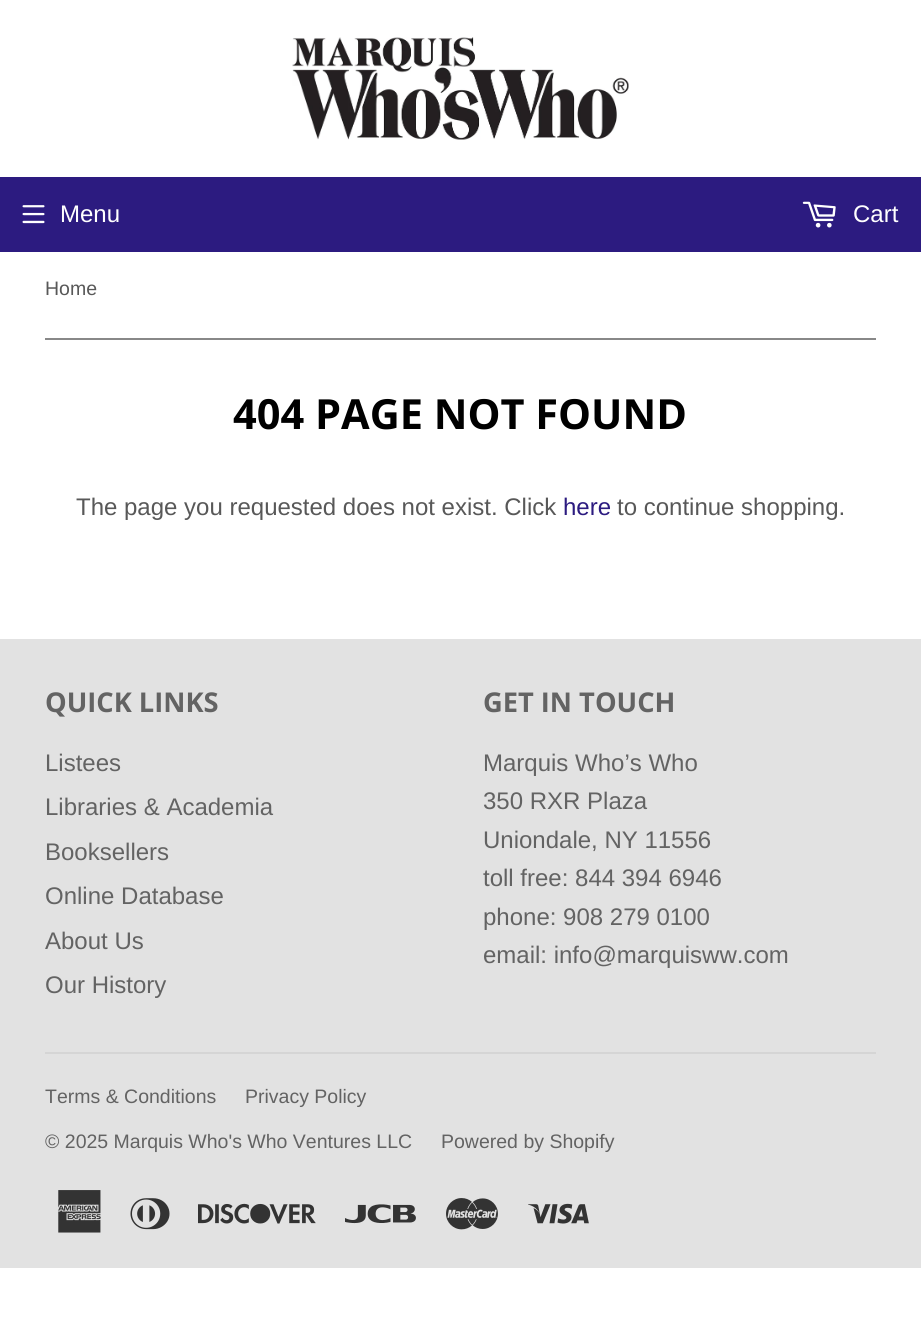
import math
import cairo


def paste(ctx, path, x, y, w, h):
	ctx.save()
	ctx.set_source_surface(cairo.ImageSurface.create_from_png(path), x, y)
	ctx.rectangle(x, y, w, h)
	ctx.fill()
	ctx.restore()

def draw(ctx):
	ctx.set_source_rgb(1, 1, 1)
	ctx.paint()
	paste(ctx, 'media/1.png', 292, 37, 337, 103)
	ctx.set_source_rgb(0.173, 0.106, 0.502)
	ctx.rectangle(0, 177, 921, 75)
	ctx.fill()
	paste(ctx, 'media/2.png', 22, 205, 23, 19)
	ctx.select_font_face('Liberation Sans')
	ctx.set_font_size(24)
	ctx.set_source_rgb(1, 1, 1)
	ctx.move_to(60, 222)
	ctx.show_text('Menu')
	paste(ctx, 'media/3.png', 802, 201, 34, 27)
	ctx.move_to(853, 222)
	ctx.show_text('Cart')
	ctx.set_source_rgb(0.533, 0.533, 0.533)
	ctx.rectangle(45, 338, 831, 2)
	ctx.fill()
	ctx.set_font_size(19.5)
	ctx.set_source_rgb(0.345, 0.345, 0.345)
	ctx.move_to(45, 295)
	ctx.show_text('Home')
	ctx.select_font_face('Open Sans', cairo.FONT_SLANT_NORMAL, cairo.FONT_WEIGHT_BOLD)
	ctx.set_font_size(41.5)
	ctx.set_source_rgb(0, 0, 0)
	ctx.move_to(233, 429)
	ctx.show_text('404 PAGE NOT FOUND')
	ctx.select_font_face('Liberation Sans')
	ctx.set_font_size(24)
	ctx.set_source_rgb(0.345, 0.345, 0.345)
	ctx.move_to(76, 515)
	ctx.show_text('The page you requested does not exist. Click')
	ctx.set_source_rgb(0.173, 0.106, 0.502)
	ctx.move_to(563, 515)
	ctx.show_text('here')
	ctx.set_source_rgb(0.345, 0.345, 0.345)
	ctx.move_to(617, 515)
	ctx.show_text('to continue shopping.')
	ctx.set_source_rgb(0.886, 0.886, 0.886)
	ctx.rectangle(0, 639, 921, 629)
	ctx.fill()
	ctx.select_font_face('Open Sans', cairo.FONT_SLANT_NORMAL, cairo.FONT_WEIGHT_BOLD)
	ctx.set_font_size(27.25)
	ctx.set_source_rgb(0.388, 0.388, 0.388)
	ctx.move_to(45, 712)
	ctx.show_text('QUICK LINKS')
	ctx.select_font_face('Liberation Sans')
	ctx.set_font_size(24)
	for x, y, s in [
		(45, 771, 'Listees'),
		(45, 815, 'Libraries & Academia'),
		(45, 860, 'Booksellers'),
		(45, 904, 'Online Database'),
		(45, 949, 'About Us'),
		(45, 993, 'Our History'),
	]:
		ctx.move_to(x, y)
		ctx.show_text(s)
	ctx.select_font_face('Open Sans', cairo.FONT_SLANT_NORMAL, cairo.FONT_WEIGHT_BOLD)
	ctx.set_font_size(27.25)
	ctx.move_to(483, 712)
	ctx.show_text('GET IN TOUCH')
	ctx.select_font_face('Liberation Sans')
	ctx.set_font_size(24)
	for x, y, s in [
		(483, 771, 'Marquis Who’s Who'),
		(483, 809, '350 RXR Plaza'),
		(483, 848, 'Uniondale, NY 11556'),
		(483, 886, 'toll free: 844 394 6946'),
		(483, 925, 'phone: 908 279 0100'),
		(483, 963, 'email: info@marquisww.com'),
	]:
		ctx.move_to(x, y)
		ctx.show_text(s)
	ctx.set_source_rgb(0.835, 0.835, 0.835)
	ctx.rectangle(45, 1052, 831, 2)
	ctx.fill()
	ctx.set_font_size(19.5)
	ctx.set_source_rgb(0.388, 0.388, 0.388)
	for x, y, s in [
		(45, 1103, 'Terms & Conditions'),
		(245, 1103, 'Privacy Policy'),
		(45, 1148, '© 2025 Marquis Who\'s Who Ventures LLC'),
		(441, 1148, 'Powered by Shopify'),
	]:
		ctx.move_to(x, y)
		ctx.show_text(s)
	paste(ctx, 'media/4.png', 58, 1190, 43, 43)
	paste(ctx, 'media/5.png', 130, 1198, 40, 32)
	paste(ctx, 'media/6.png', 198, 1203, 118, 21)
	paste(ctx, 'media/7.png', 345, 1204, 71, 20)
	paste(ctx, 'media/8.png', 446, 1198, 52, 32)
	paste(ctx, 'media/9.png', 528, 1203, 61, 21)


surface = cairo.ImageSurface(cairo.FORMAT_RGB24, 921, 1334)
ctx = cairo.Context(surface)
options = cairo.FontOptions()
options.set_hint_metrics(cairo.HINT_METRICS_OFF)
options.set_hint_style(cairo.HINT_STYLE_NONE)
ctx.set_font_options(options)
ctx.set_miter_limit(4)
draw(ctx)
surface.write_to_png('image.png')
